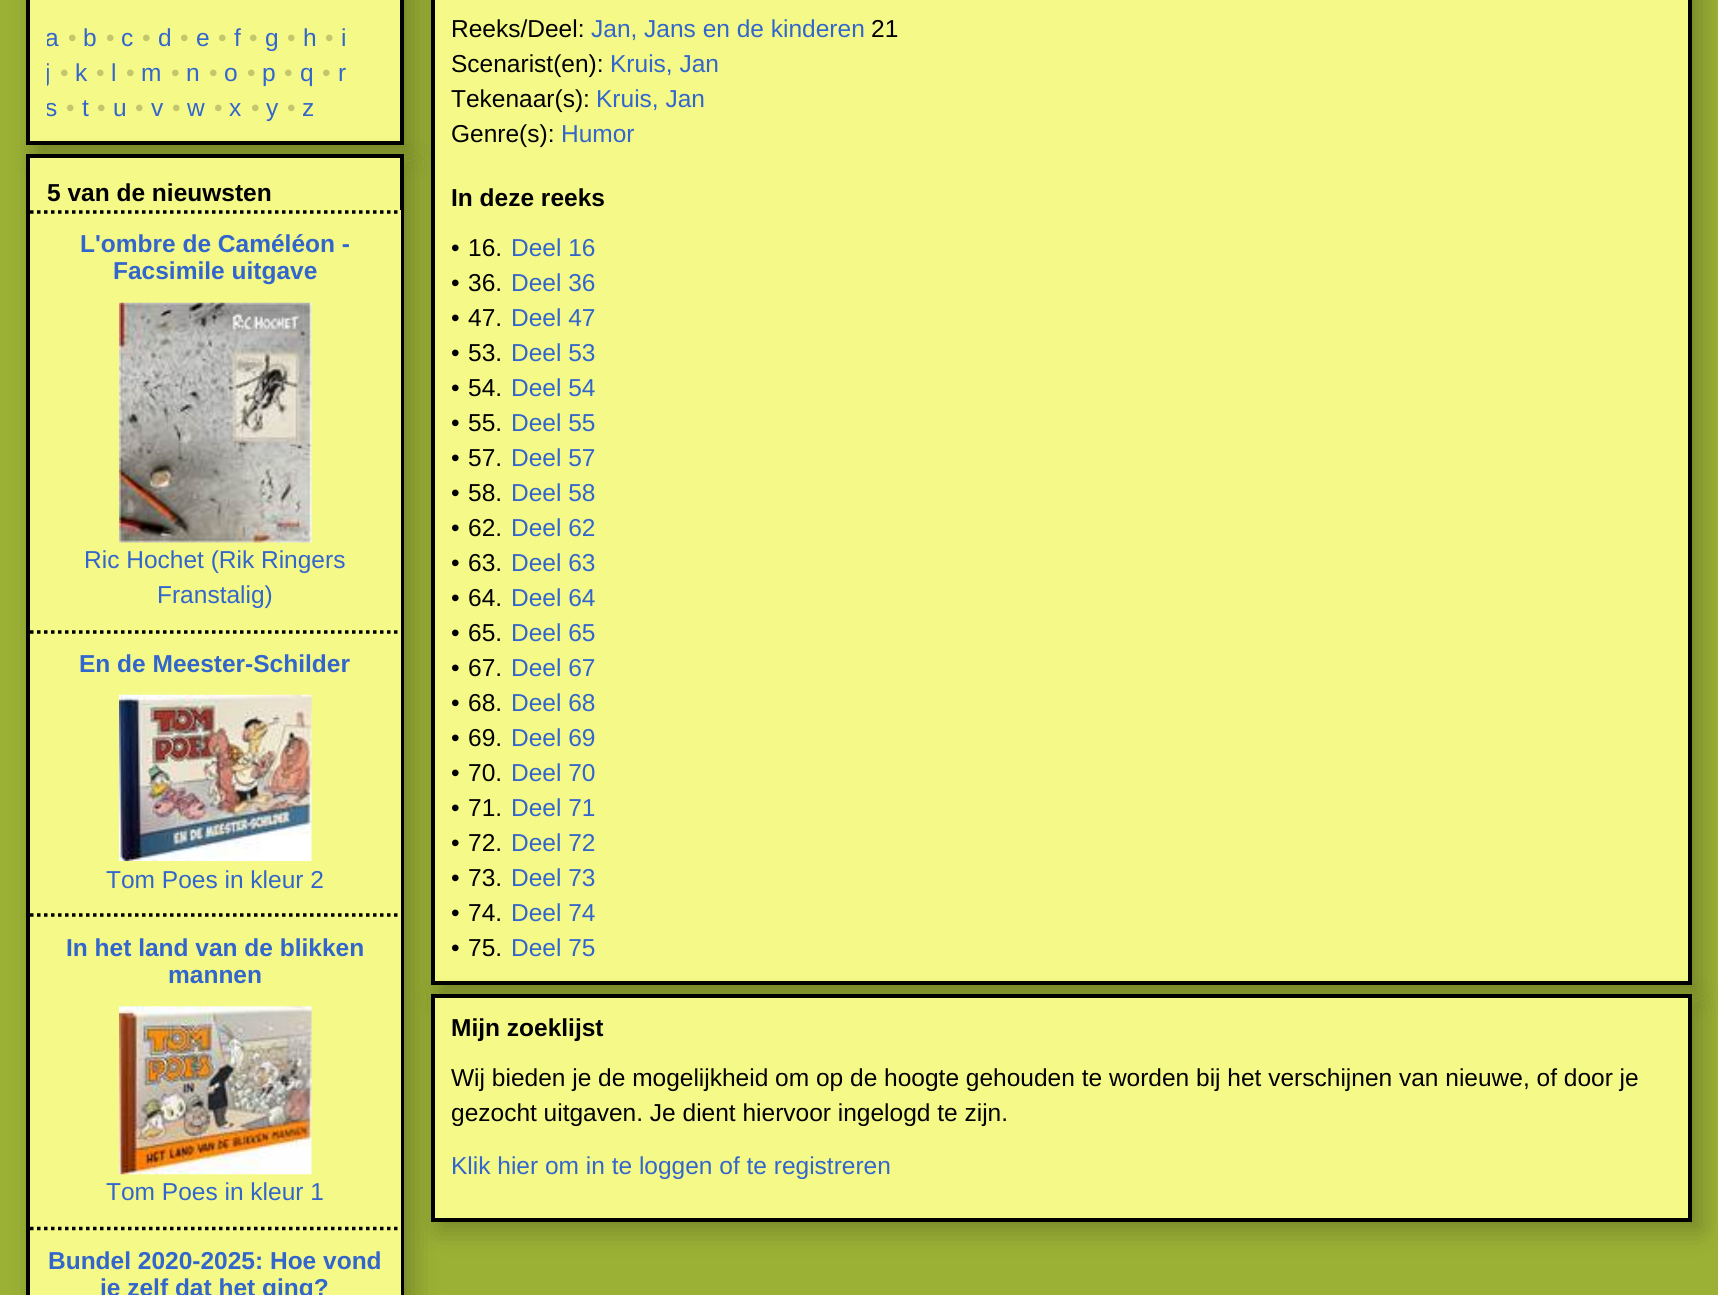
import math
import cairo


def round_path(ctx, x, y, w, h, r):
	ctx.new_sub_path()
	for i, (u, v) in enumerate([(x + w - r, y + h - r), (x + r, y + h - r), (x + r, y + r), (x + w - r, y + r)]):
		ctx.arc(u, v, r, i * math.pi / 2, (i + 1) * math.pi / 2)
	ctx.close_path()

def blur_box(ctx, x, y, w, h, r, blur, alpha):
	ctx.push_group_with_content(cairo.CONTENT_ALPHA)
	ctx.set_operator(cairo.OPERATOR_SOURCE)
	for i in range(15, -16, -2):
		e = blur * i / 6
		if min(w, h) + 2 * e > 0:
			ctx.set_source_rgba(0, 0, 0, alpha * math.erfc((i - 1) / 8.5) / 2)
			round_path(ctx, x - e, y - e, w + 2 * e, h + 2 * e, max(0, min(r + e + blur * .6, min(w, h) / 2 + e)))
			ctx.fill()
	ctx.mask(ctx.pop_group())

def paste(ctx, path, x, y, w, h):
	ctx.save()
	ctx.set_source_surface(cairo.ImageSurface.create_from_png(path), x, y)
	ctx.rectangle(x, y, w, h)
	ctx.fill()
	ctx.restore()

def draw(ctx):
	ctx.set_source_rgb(0.608, 0.694, 0.208)
	ctx.paint()
	ctx.set_source_rgb(0, 0, 0)
	blur_box(ctx, 439, -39, 1262, 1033, 0, 13, 0.25)
	ctx.set_source_rgb(0.957, 0.973, 0.529)
	ctx.rectangle(433, -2, 1257, 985)
	ctx.fill_preserve()
	ctx.set_source_rgb(0, 0, 0)
	ctx.set_line_width(4)
	ctx.stroke()
	ctx.set_source_rgb(0, 0, 0)
	blur_box(ctx, 35, -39, 378, 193, 0, 13, 0.25)
	ctx.set_source_rgb(0.957, 0.973, 0.529)
	ctx.rectangle(28, -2, 374, 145)
	ctx.fill_preserve()
	ctx.set_source_rgb(0, 0, 0)
	ctx.stroke()
	ctx.save()
	ctx.rectangle(47, 19, 336, 105)
	ctx.clip()
	ctx.select_font_face('Liberation Sans')
	ctx.set_font_size(24.5)
	ctx.set_source_rgb(0.2, 0.4, 0.8)
	ctx.move_to(45, 46)
	ctx.show_text('a')
	ctx.restore()
	ctx.select_font_face('Liberation Sans')
	ctx.set_font_size(24.5)
	ctx.set_source_rgb(0.765, 0.776, 0.424)
	ctx.move_to(68, 46)
	ctx.show_text('•')
	ctx.set_source_rgb(0.2, 0.4, 0.8)
	ctx.move_to(83, 46)
	ctx.show_text('b')
	ctx.set_source_rgb(0.765, 0.776, 0.424)
	ctx.move_to(106, 46)
	ctx.show_text('•')
	ctx.set_source_rgb(0.2, 0.4, 0.8)
	ctx.move_to(121, 46)
	ctx.show_text('c')
	ctx.set_source_rgb(0.765, 0.776, 0.424)
	ctx.move_to(142, 46)
	ctx.show_text('•')
	ctx.set_source_rgb(0.2, 0.4, 0.8)
	ctx.move_to(158, 46)
	ctx.show_text('d')
	ctx.set_source_rgb(0.765, 0.776, 0.424)
	ctx.move_to(180, 46)
	ctx.show_text('•')
	ctx.set_source_rgb(0.2, 0.4, 0.8)
	ctx.move_to(196, 46)
	ctx.show_text('e')
	ctx.set_source_rgb(0.765, 0.776, 0.424)
	ctx.move_to(218, 46)
	ctx.show_text('•')
	ctx.set_source_rgb(0.2, 0.4, 0.8)
	ctx.move_to(234, 46)
	ctx.show_text('f')
	ctx.set_source_rgb(0.765, 0.776, 0.424)
	ctx.move_to(249, 46)
	ctx.show_text('•')
	ctx.set_source_rgb(0.2, 0.4, 0.8)
	ctx.move_to(265, 46)
	ctx.show_text('g')
	ctx.set_source_rgb(0.765, 0.776, 0.424)
	ctx.move_to(287, 46)
	ctx.show_text('•')
	ctx.set_source_rgb(0.2, 0.4, 0.8)
	ctx.move_to(303, 46)
	ctx.show_text('h')
	ctx.set_source_rgb(0.765, 0.776, 0.424)
	ctx.move_to(325, 46)
	ctx.show_text('•')
	ctx.set_source_rgb(0.2, 0.4, 0.8)
	ctx.move_to(341, 46)
	ctx.show_text('i')
	ctx.save()
	ctx.rectangle(47, 19, 336, 105)
	ctx.clip()
	ctx.move_to(45, 81)
	ctx.show_text('j')
	ctx.restore()
	ctx.set_source_rgb(0.765, 0.776, 0.424)
	ctx.move_to(60, 81)
	ctx.show_text('•')
	ctx.set_source_rgb(0.2, 0.4, 0.8)
	ctx.move_to(75, 81)
	ctx.show_text('k')
	ctx.set_source_rgb(0.765, 0.776, 0.424)
	ctx.move_to(96, 81)
	ctx.show_text('•')
	ctx.set_source_rgb(0.2, 0.4, 0.8)
	ctx.move_to(111, 81)
	ctx.show_text('l')
	ctx.set_source_rgb(0.765, 0.776, 0.424)
	ctx.move_to(126, 81)
	ctx.show_text('•')
	ctx.set_source_rgb(0.2, 0.4, 0.8)
	ctx.move_to(141, 81)
	ctx.show_text('m')
	ctx.set_source_rgb(0.765, 0.776, 0.424)
	ctx.move_to(171, 81)
	ctx.show_text('•')
	ctx.set_source_rgb(0.2, 0.4, 0.8)
	ctx.move_to(186, 81)
	ctx.show_text('n')
	ctx.set_source_rgb(0.765, 0.776, 0.424)
	ctx.move_to(209, 81)
	ctx.show_text('•')
	ctx.set_source_rgb(0.2, 0.4, 0.8)
	ctx.move_to(224, 81)
	ctx.show_text('o')
	ctx.set_source_rgb(0.765, 0.776, 0.424)
	ctx.move_to(247, 81)
	ctx.show_text('•')
	ctx.set_source_rgb(0.2, 0.4, 0.8)
	ctx.move_to(262, 81)
	ctx.show_text('p')
	ctx.set_source_rgb(0.765, 0.776, 0.424)
	ctx.move_to(284, 81)
	ctx.show_text('•')
	ctx.set_source_rgb(0.2, 0.4, 0.8)
	ctx.move_to(300, 81)
	ctx.show_text('q')
	ctx.set_source_rgb(0.765, 0.776, 0.424)
	ctx.move_to(322, 81)
	ctx.show_text('•')
	ctx.set_source_rgb(0.2, 0.4, 0.8)
	ctx.move_to(338, 81)
	ctx.show_text('r')
	ctx.save()
	ctx.rectangle(47, 19, 336, 105)
	ctx.clip()
	ctx.move_to(45, 116)
	ctx.show_text('s')
	ctx.restore()
	ctx.set_source_rgb(0.765, 0.776, 0.424)
	ctx.move_to(66, 116)
	ctx.show_text('•')
	ctx.set_source_rgb(0.2, 0.4, 0.8)
	ctx.move_to(82, 116)
	ctx.show_text('t')
	ctx.set_source_rgb(0.765, 0.776, 0.424)
	ctx.move_to(97, 116)
	ctx.show_text('•')
	ctx.set_source_rgb(0.2, 0.4, 0.8)
	ctx.move_to(113, 116)
	ctx.show_text('u')
	ctx.set_source_rgb(0.765, 0.776, 0.424)
	ctx.move_to(135, 116)
	ctx.show_text('•')
	ctx.set_source_rgb(0.2, 0.4, 0.8)
	ctx.move_to(151, 116)
	ctx.show_text('v')
	ctx.set_source_rgb(0.765, 0.776, 0.424)
	ctx.move_to(172, 116)
	ctx.show_text('•')
	ctx.set_source_rgb(0.2, 0.4, 0.8)
	ctx.move_to(187, 116)
	ctx.show_text('w')
	ctx.set_source_rgb(0.765, 0.776, 0.424)
	ctx.move_to(214, 116)
	ctx.show_text('•')
	ctx.set_source_rgb(0.2, 0.4, 0.8)
	ctx.move_to(229, 116)
	ctx.show_text('x')
	ctx.set_source_rgb(0.765, 0.776, 0.424)
	ctx.move_to(251, 116)
	ctx.show_text('•')
	ctx.set_source_rgb(0.2, 0.4, 0.8)
	ctx.move_to(266, 116)
	ctx.show_text('y')
	ctx.set_source_rgb(0.765, 0.776, 0.424)
	ctx.move_to(287, 116)
	ctx.show_text('•')
	ctx.set_source_rgb(0.2, 0.4, 0.8)
	ctx.move_to(302, 116)
	ctx.show_text('z')
	ctx.set_source_rgb(0, 0, 0)
	blur_box(ctx, 439, 1003, 1262, 227, 0, 13, 0.25)
	ctx.set_source_rgb(0.957, 0.973, 0.529)
	ctx.rectangle(433, 996, 1257, 224)
	ctx.fill_preserve()
	ctx.set_source_rgb(0, 0, 0)
	ctx.stroke()
	ctx.set_source_rgb(0, 0, 0)
	blur_box(ctx, 35, 163, 378, 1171, 0, 13, 0.25)
	ctx.set_source_rgb(0.957, 0.973, 0.529)
	ctx.rectangle(30, 158, 370, 52)
	ctx.fill()
	ctx.rectangle(28, 156, 374, 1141)
	ctx.set_source_rgb(0, 0, 0)
	ctx.stroke()
	ctx.select_font_face('Liberation Sans', cairo.FONT_SLANT_NORMAL, cairo.FONT_WEIGHT_BOLD)
	ctx.move_to(47, 201)
	ctx.show_text('5 van de nieuwsten')
	ctx.set_source_rgb(0.957, 0.973, 0.529)
	ctx.rectangle(30, 210, 371, 1085)
	ctx.fill()
	ctx.new_path()
	ctx.move_to(30, 212)
	ctx.line_to(401, 212)
	ctx.set_source_rgb(0, 0, 0)
	ctx.set_line_width(3.5)
	ctx.set_dash([3.5, 3.5])
	ctx.stroke()
	ctx.set_source_rgb(0.2, 0.4, 0.8)
	ctx.move_to(80, 252)
	ctx.show_text('L\'ombre de Caméléon -')
	ctx.move_to(113, 279)
	ctx.show_text('Facsimile uitgave')
	paste(ctx, 'media/1.png', 119, 302, 193, 241)
	ctx.select_font_face('Liberation Sans')
	ctx.move_to(84, 568)
	ctx.show_text('Ric Hochet (Rik Ringers')
	ctx.move_to(157, 603)
	ctx.show_text('Franstalig)')
	ctx.new_path()
	ctx.move_to(30, 632)
	ctx.line_to(401, 632)
	ctx.set_source_rgb(0, 0, 0)
	ctx.stroke()
	ctx.select_font_face('Liberation Sans', cairo.FONT_SLANT_NORMAL, cairo.FONT_WEIGHT_BOLD)
	ctx.set_source_rgb(0.2, 0.4, 0.8)
	ctx.move_to(79, 672)
	ctx.show_text('En de Meester-Schilder')
	paste(ctx, 'media/2.png', 119, 694, 193, 167)
	ctx.select_font_face('Liberation Sans')
	ctx.move_to(106, 888)
	ctx.show_text('Tom Poes in kleur 2')
	ctx.new_path()
	ctx.move_to(30, 915)
	ctx.line_to(401, 915)
	ctx.set_source_rgb(0, 0, 0)
	ctx.stroke()
	ctx.select_font_face('Liberation Sans', cairo.FONT_SLANT_NORMAL, cairo.FONT_WEIGHT_BOLD)
	ctx.set_source_rgb(0.2, 0.4, 0.8)
	ctx.move_to(66, 956)
	ctx.show_text('In het land van de blikken')
	ctx.move_to(168, 983)
	ctx.show_text('mannen')
	paste(ctx, 'media/3.png', 119, 1006, 193, 169)
	ctx.select_font_face('Liberation Sans')
	ctx.move_to(106, 1200)
	ctx.show_text('Tom Poes in kleur 1')
	ctx.new_path()
	ctx.move_to(30, 1228.5)
	ctx.line_to(401, 1228.5)
	ctx.set_source_rgb(0, 0, 0)
	ctx.stroke()
	ctx.select_font_face('Liberation Sans', cairo.FONT_SLANT_NORMAL, cairo.FONT_WEIGHT_BOLD)
	ctx.set_source_rgb(0.2, 0.4, 0.8)
	ctx.move_to(48, 1269)
	ctx.show_text('Bundel 2020-2025: Hoe vond')
	ctx.move_to(100, 1296)
	ctx.show_text('je zelf dat het ging?')
	ctx.select_font_face('Liberation Sans')
	ctx.set_source_rgb(0, 0, 0)
	ctx.move_to(451, 37)
	ctx.show_text('Reeks/Deel:')
	ctx.set_source_rgb(0.2, 0.4, 0.8)
	ctx.move_to(591, 37)
	ctx.show_text('Jan, Jans en de kinderen')
	ctx.set_source_rgb(0, 0, 0)
	ctx.move_to(871, 37)
	ctx.show_text('21')
	ctx.move_to(451, 72)
	ctx.show_text('Scenarist(en):')
	ctx.set_source_rgb(0.2, 0.4, 0.8)
	ctx.move_to(610, 72)
	ctx.show_text('Kruis, Jan')
	ctx.set_source_rgb(0, 0, 0)
	ctx.move_to(451, 107)
	ctx.show_text('Tekenaar(s):')
	ctx.set_source_rgb(0.2, 0.4, 0.8)
	ctx.move_to(596, 107)
	ctx.show_text('Kruis, Jan')
	ctx.set_source_rgb(0, 0, 0)
	ctx.move_to(451, 142)
	ctx.show_text('Genre(s):')
	ctx.set_source_rgb(0.2, 0.4, 0.8)
	ctx.move_to(561, 142)
	ctx.show_text('Humor')
	ctx.select_font_face('Liberation Sans', cairo.FONT_SLANT_NORMAL, cairo.FONT_WEIGHT_BOLD)
	ctx.set_source_rgb(0, 0, 0)
	ctx.move_to(451, 206)
	ctx.show_text('In deze reeks')
	ctx.select_font_face('Liberation Sans')
	ctx.move_to(451, 256)
	ctx.show_text('•')
	ctx.move_to(468, 256)
	ctx.show_text('16.')
	ctx.set_source_rgb(0.2, 0.4, 0.8)
	ctx.move_to(511, 256)
	ctx.show_text('Deel 16')
	ctx.set_source_rgb(0, 0, 0)
	ctx.move_to(451, 291)
	ctx.show_text('•')
	ctx.move_to(468, 291)
	ctx.show_text('36.')
	ctx.set_source_rgb(0.2, 0.4, 0.8)
	ctx.move_to(511, 291)
	ctx.show_text('Deel 36')
	ctx.set_source_rgb(0, 0, 0)
	ctx.move_to(451, 326)
	ctx.show_text('•')
	ctx.move_to(468, 326)
	ctx.show_text('47.')
	ctx.set_source_rgb(0.2, 0.4, 0.8)
	ctx.move_to(511, 326)
	ctx.show_text('Deel 47')
	ctx.set_source_rgb(0, 0, 0)
	ctx.move_to(451, 361)
	ctx.show_text('•')
	ctx.move_to(468, 361)
	ctx.show_text('53.')
	ctx.set_source_rgb(0.2, 0.4, 0.8)
	ctx.move_to(511, 361)
	ctx.show_text('Deel 53')
	ctx.set_source_rgb(0, 0, 0)
	ctx.move_to(451, 396)
	ctx.show_text('•')
	ctx.move_to(468, 396)
	ctx.show_text('54.')
	ctx.set_source_rgb(0.2, 0.4, 0.8)
	ctx.move_to(511, 396)
	ctx.show_text('Deel 54')
	ctx.set_source_rgb(0, 0, 0)
	ctx.move_to(451, 431)
	ctx.show_text('•')
	ctx.move_to(468, 431)
	ctx.show_text('55.')
	ctx.set_source_rgb(0.2, 0.4, 0.8)
	ctx.move_to(511, 431)
	ctx.show_text('Deel 55')
	ctx.set_source_rgb(0, 0, 0)
	ctx.move_to(451, 466)
	ctx.show_text('•')
	ctx.move_to(468, 466)
	ctx.show_text('57.')
	ctx.set_source_rgb(0.2, 0.4, 0.8)
	ctx.move_to(511, 466)
	ctx.show_text('Deel 57')
	ctx.set_source_rgb(0, 0, 0)
	ctx.move_to(451, 501)
	ctx.show_text('•')
	ctx.move_to(468, 501)
	ctx.show_text('58.')
	ctx.set_source_rgb(0.2, 0.4, 0.8)
	ctx.move_to(511, 501)
	ctx.show_text('Deel 58')
	ctx.set_source_rgb(0, 0, 0)
	ctx.move_to(451, 536)
	ctx.show_text('•')
	ctx.move_to(468, 536)
	ctx.show_text('62.')
	ctx.set_source_rgb(0.2, 0.4, 0.8)
	ctx.move_to(511, 536)
	ctx.show_text('Deel 62')
	ctx.set_source_rgb(0, 0, 0)
	ctx.move_to(451, 571)
	ctx.show_text('•')
	ctx.move_to(468, 571)
	ctx.show_text('63.')
	ctx.set_source_rgb(0.2, 0.4, 0.8)
	ctx.move_to(511, 571)
	ctx.show_text('Deel 63')
	ctx.set_source_rgb(0, 0, 0)
	ctx.move_to(451, 606)
	ctx.show_text('•')
	ctx.move_to(468, 606)
	ctx.show_text('64.')
	ctx.set_source_rgb(0.2, 0.4, 0.8)
	ctx.move_to(511, 606)
	ctx.show_text('Deel 64')
	ctx.set_source_rgb(0, 0, 0)
	ctx.move_to(451, 641)
	ctx.show_text('•')
	ctx.move_to(468, 641)
	ctx.show_text('65.')
	ctx.set_source_rgb(0.2, 0.4, 0.8)
	ctx.move_to(511, 641)
	ctx.show_text('Deel 65')
	ctx.set_source_rgb(0, 0, 0)
	ctx.move_to(451, 676)
	ctx.show_text('•')
	ctx.move_to(468, 676)
	ctx.show_text('67.')
	ctx.set_source_rgb(0.2, 0.4, 0.8)
	ctx.move_to(511, 676)
	ctx.show_text('Deel 67')
	ctx.set_source_rgb(0, 0, 0)
	ctx.move_to(451, 711)
	ctx.show_text('•')
	ctx.move_to(468, 711)
	ctx.show_text('68.')
	ctx.set_source_rgb(0.2, 0.4, 0.8)
	ctx.move_to(511, 711)
	ctx.show_text('Deel 68')
	ctx.set_source_rgb(0, 0, 0)
	ctx.move_to(451, 746)
	ctx.show_text('•')
	ctx.move_to(468, 746)
	ctx.show_text('69.')
	ctx.set_source_rgb(0.2, 0.4, 0.8)
	ctx.move_to(511, 746)
	ctx.show_text('Deel 69')
	ctx.set_source_rgb(0, 0, 0)
	ctx.move_to(451, 781)
	ctx.show_text('•')
	ctx.move_to(468, 781)
	ctx.show_text('70.')
	ctx.set_source_rgb(0.2, 0.4, 0.8)
	ctx.move_to(511, 781)
	ctx.show_text('Deel 70')
	ctx.set_source_rgb(0, 0, 0)
	ctx.move_to(451, 816)
	ctx.show_text('•')
	ctx.move_to(468, 816)
	ctx.show_text('71.')
	ctx.set_source_rgb(0.2, 0.4, 0.8)
	ctx.move_to(511, 816)
	ctx.show_text('Deel 71')
	ctx.set_source_rgb(0, 0, 0)
	ctx.move_to(451, 851)
	ctx.show_text('•')
	ctx.move_to(468, 851)
	ctx.show_text('72.')
	ctx.set_source_rgb(0.2, 0.4, 0.8)
	ctx.move_to(511, 851)
	ctx.show_text('Deel 72')
	ctx.set_source_rgb(0, 0, 0)
	ctx.move_to(451, 886)
	ctx.show_text('•')
	ctx.move_to(468, 886)
	ctx.show_text('73.')
	ctx.set_source_rgb(0.2, 0.4, 0.8)
	ctx.move_to(511, 886)
	ctx.show_text('Deel 73')
	ctx.set_source_rgb(0, 0, 0)
	ctx.move_to(451, 921)
	ctx.show_text('•')
	ctx.move_to(468, 921)
	ctx.show_text('74.')
	ctx.set_source_rgb(0.2, 0.4, 0.8)
	ctx.move_to(511, 921)
	ctx.show_text('Deel 74')
	ctx.set_source_rgb(0, 0, 0)
	ctx.move_to(451, 956)
	ctx.show_text('•')
	ctx.move_to(468, 956)
	ctx.show_text('75.')
	ctx.set_source_rgb(0.2, 0.4, 0.8)
	ctx.move_to(511, 956)
	ctx.show_text('Deel 75')
	ctx.select_font_face('Liberation Sans', cairo.FONT_SLANT_NORMAL, cairo.FONT_WEIGHT_BOLD)
	ctx.set_source_rgb(0, 0, 0)
	ctx.move_to(451, 1036)
	ctx.show_text('Mijn zoeklijst')
	ctx.select_font_face('Liberation Sans')
	ctx.move_to(451, 1086)
	ctx.show_text('Wij bieden je de mogelijkheid om op de hoogte gehouden te worden bij het verschijnen van nieuwe, of door je')
	ctx.move_to(451, 1121)
	ctx.show_text('gezocht uitgaven. Je dient hiervoor ingelogd te zijn.')
	ctx.set_source_rgb(0.2, 0.4, 0.8)
	ctx.move_to(451, 1174)
	ctx.show_text('Klik hier om in te loggen of te registreren')


surface = cairo.ImageSurface(cairo.FORMAT_RGB24, 1718, 1295)
ctx = cairo.Context(surface)
options = cairo.FontOptions()
options.set_hint_metrics(cairo.HINT_METRICS_OFF)
options.set_hint_style(cairo.HINT_STYLE_NONE)
ctx.set_font_options(options)
ctx.set_miter_limit(4)
draw(ctx)
surface.write_to_png('image.png')
